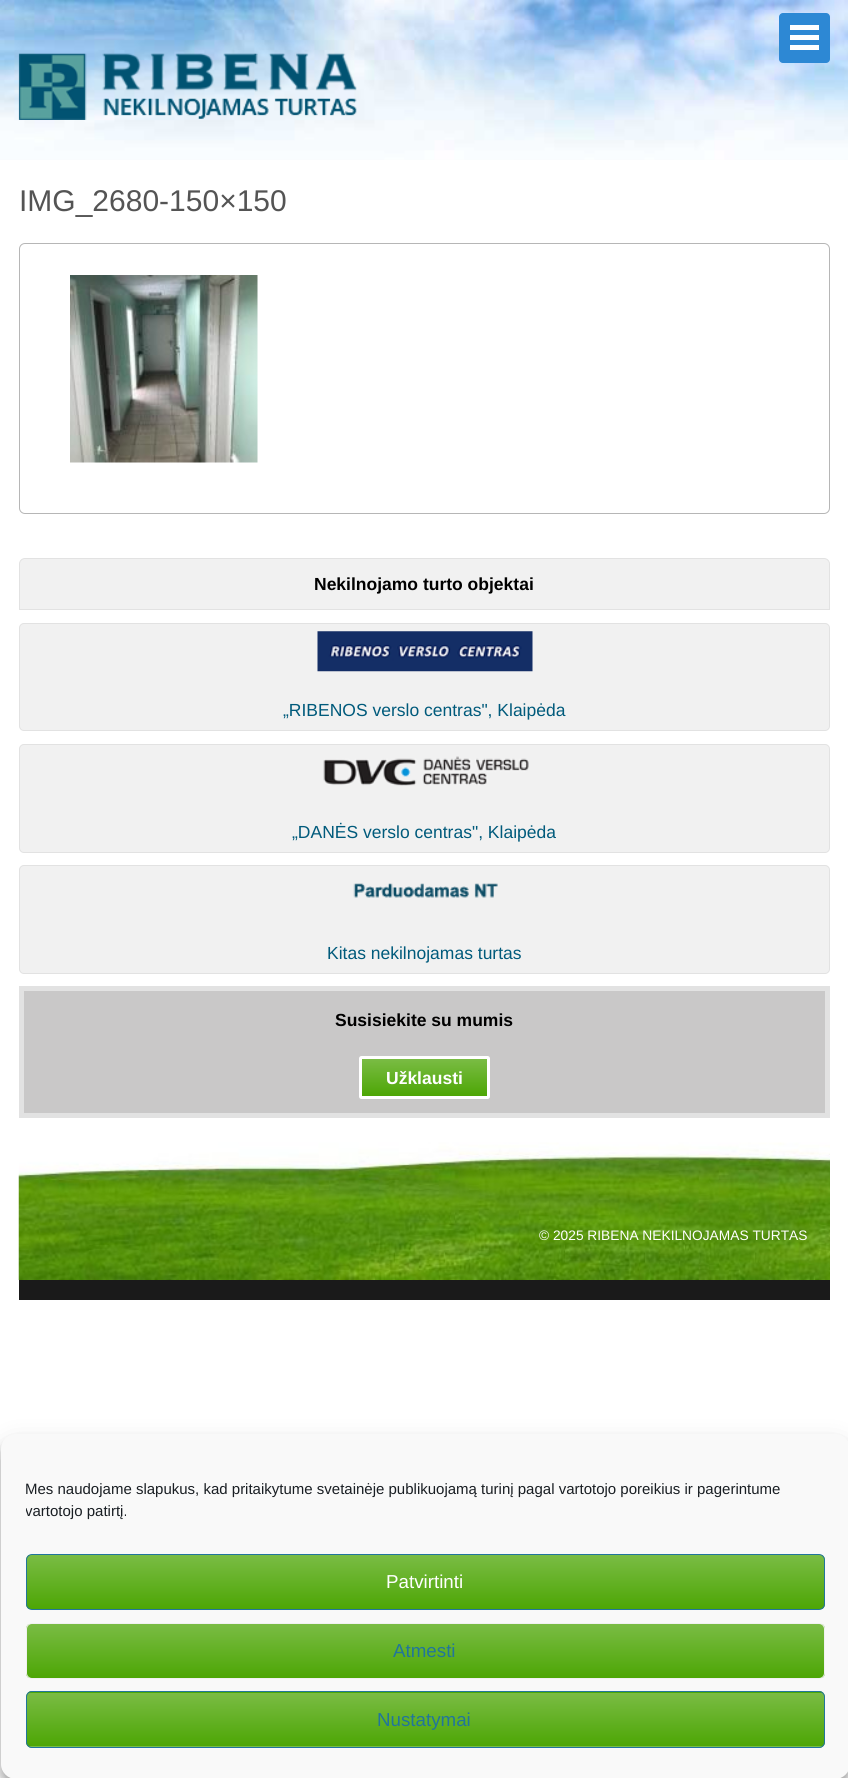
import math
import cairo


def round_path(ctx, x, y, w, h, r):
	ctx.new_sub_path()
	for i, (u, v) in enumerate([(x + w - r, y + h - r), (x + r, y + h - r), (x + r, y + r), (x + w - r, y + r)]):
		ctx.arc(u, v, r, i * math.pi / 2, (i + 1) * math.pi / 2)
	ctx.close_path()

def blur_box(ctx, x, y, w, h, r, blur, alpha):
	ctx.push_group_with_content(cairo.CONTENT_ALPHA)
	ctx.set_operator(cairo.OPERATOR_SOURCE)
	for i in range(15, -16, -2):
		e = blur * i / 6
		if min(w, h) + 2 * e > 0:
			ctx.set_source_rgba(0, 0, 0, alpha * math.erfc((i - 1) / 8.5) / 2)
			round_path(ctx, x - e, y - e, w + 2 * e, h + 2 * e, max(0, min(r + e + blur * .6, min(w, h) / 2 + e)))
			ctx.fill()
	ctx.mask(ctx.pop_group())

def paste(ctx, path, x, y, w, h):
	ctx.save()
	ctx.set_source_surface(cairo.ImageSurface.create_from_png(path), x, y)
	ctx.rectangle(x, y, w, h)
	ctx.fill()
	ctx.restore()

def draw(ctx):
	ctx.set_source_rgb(1, 1, 1)
	ctx.paint()
	paste(ctx, 'media/1.png', 0, 0, 848, 160)
	ctx.set_source_rgb(0.176, 0.533, 0.831)
	round_path(ctx, 779, 13, 51, 50, 4)
	ctx.fill()
	ctx.set_source_rgb(1, 1, 1)
	ctx.rectangle(790, 25, 29, 5)
	ctx.rectangle(790, 35, 29, 5)
	ctx.rectangle(790, 45, 29, 5)
	ctx.fill()
	paste(ctx, 'media/2.png', 18, 53, 339, 67)
	ctx.select_font_face('Liberation Sans')
	ctx.set_font_size(30)
	ctx.set_source_rgb(0.329, 0.329, 0.329)
	ctx.move_to(19, 211)
	ctx.show_text('IMG_2680-150×150')
	round_path(ctx, 19.5, 243.5, 810, 270, 5.5)
	ctx.set_source_rgb(0.714, 0.714, 0.714)
	ctx.set_line_width(1)
	ctx.stroke()
	paste(ctx, 'media/3.png', 70, 275, 188, 188)
	ctx.set_source_rgb(0.945, 0.945, 0.945)
	ctx.new_path()
	ctx.move_to(25, 558.5)
	ctx.line_to(824, 558.5)
	ctx.curve_to(827, 558.5, 829.5, 561, 829.5, 564)
	ctx.line_to(829.5, 609.5)
	ctx.line_to(19.5, 609.5)
	ctx.line_to(19.5, 564)
	ctx.curve_to(19.5, 561, 22, 558.5, 25, 558.5)
	ctx.close_path()
	ctx.fill_preserve()
	ctx.set_source_rgb(0.886, 0.886, 0.886)
	ctx.stroke()
	ctx.select_font_face('Liberation Sans', cairo.FONT_SLANT_NORMAL, cairo.FONT_WEIGHT_BOLD)
	ctx.set_font_size(17.5)
	ctx.set_source_rgb(0, 0, 0)
	ctx.move_to(314, 590)
	ctx.show_text('Nekilnojamo turto objektai')
	ctx.set_source_rgb(0.945, 0.945, 0.945)
	round_path(ctx, 19.5, 623.5, 810, 107, 4.5)
	ctx.fill_preserve()
	ctx.set_source_rgb(0.886, 0.886, 0.886)
	ctx.stroke()
	paste(ctx, 'media/4.png', 317, 631, 216, 41)
	ctx.select_font_face('Liberation Sans')
	ctx.set_source_rgb(0, 0.353, 0.482)
	ctx.move_to(283, 716)
	ctx.show_text('„RIBENOS verslo centras", Klaipėda')
	ctx.set_source_rgb(0.945, 0.945, 0.945)
	round_path(ctx, 19.5, 744.5, 810, 108, 4.5)
	ctx.fill_preserve()
	ctx.set_source_rgb(0.886, 0.886, 0.886)
	ctx.stroke()
	paste(ctx, 'media/5.png', 323, 756, 206, 30)
	ctx.set_source_rgb(0, 0.353, 0.482)
	ctx.move_to(292, 838)
	ctx.show_text('„DANĖS verslo centras", Klaipėda')
	ctx.set_source_rgb(0.945, 0.945, 0.945)
	round_path(ctx, 19.5, 865.5, 810, 108, 4.5)
	ctx.fill_preserve()
	ctx.set_source_rgb(0.886, 0.886, 0.886)
	ctx.stroke()
	paste(ctx, 'media/6.png', 353, 883, 145, 15)
	ctx.set_source_rgb(0, 0.353, 0.482)
	ctx.move_to(327, 959)
	ctx.show_text('Kitas nekilnojamas turtas')
	ctx.set_source_rgb(0.788, 0.784, 0.784)
	ctx.rectangle(21.5, 988.5, 806, 127)
	ctx.fill_preserve()
	ctx.set_source_rgb(0.886, 0.886, 0.886)
	ctx.set_line_width(5)
	ctx.stroke()
	ctx.select_font_face('Liberation Sans', cairo.FONT_SLANT_NORMAL, cairo.FONT_WEIGHT_BOLD)
	ctx.set_source_rgb(0, 0, 0)
	ctx.move_to(335, 1026)
	ctx.show_text('Susisiekite su mumis')
	gradient = cairo.LinearGradient(424, 1059, 424, 1096)
	gradient.add_color_stop_rgba(0, 0.478, 0.737, 0.267, 1)
	gradient.add_color_stop_rgba(1, 0.302, 0.651, 0.02, 1)
	ctx.set_source(gradient)
	ctx.rectangle(362, 1059, 125, 37)
	ctx.fill()
	round_path(ctx, 360.5, 1057.5, 128, 40, 1)
	ctx.set_source_rgb(1, 1, 1)
	ctx.set_line_width(3)
	ctx.stroke()
	ctx.move_to(386, 1084)
	ctx.show_text('Užklausti')
	paste(ctx, 'media/7.png', 18, 1142, 812, 138)
	ctx.select_font_face('Liberation Sans')
	ctx.set_font_size(13.75)
	ctx.move_to(539, 1240)
	ctx.show_text('© 2025 RIBENA NEKILNOJAMAS TURTAS')
	ctx.set_source_rgb(0.102, 0.102, 0.102)
	ctx.rectangle(19, 1280, 811, 20)
	ctx.fill()
	ctx.set_source_rgb(0, 0, 0)
	blur_box(ctx, 1, 1441, 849, 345, 15, 4, 0.23)
	blur_box(ctx, 1, 1446, 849, 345, 15, 12.5, 0.19)
	ctx.set_source_rgb(0.976, 0.976, 0.976)
	round_path(ctx, 1, 1434, 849, 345, 15)
	ctx.fill()
	ctx.set_font_size(15)
	ctx.set_source_rgb(0.098, 0.118, 0.137)
	ctx.move_to(25, 1494)
	ctx.show_text('Mes naudojame slapukus, kad pritaikytume svetainėje publikuojamą turinį pagal vartotojo poreikius ir pagerintume')
	ctx.save()
	ctx.rectangle(26, 1478, 799, 51)
	ctx.clip()
	ctx.move_to(25, 1516)
	ctx.show_text('vartotojo patirtį.')
	ctx.restore()
	ctx.save()
	round_path(ctx, 26, 1554, 799, 56, 6)
	ctx.clip()
	gradient = cairo.LinearGradient(425, 1555, 425, 1609)
	gradient.add_color_stop_rgba(0, 0.478, 0.737, 0.267, 1)
	gradient.add_color_stop_rgba(1, 0.302, 0.651, 0.02, 1)
	ctx.set_source(gradient)
	ctx.rectangle(26, 1555, 799, 54)
	ctx.fill()
	ctx.restore()
	round_path(ctx, 26.5, 1554.5, 798, 55, 5.5)
	ctx.set_source_rgb(0.129, 0.459, 0.608)
	ctx.set_line_width(1)
	ctx.stroke()
	ctx.set_font_size(18.75)
	ctx.set_source_rgb(1, 1, 1)
	ctx.move_to(386, 1588)
	ctx.show_text('Patvirtinti')
	ctx.save()
	round_path(ctx, 26, 1623, 799, 56, 6)
	ctx.clip()
	gradient = cairo.LinearGradient(425, 1624, 425, 1678)
	gradient.add_color_stop_rgba(0, 0.478, 0.737, 0.267, 1)
	gradient.add_color_stop_rgba(1, 0.302, 0.651, 0.02, 1)
	ctx.set_source(gradient)
	ctx.rectangle(26, 1624, 799, 54)
	ctx.fill()
	ctx.restore()
	round_path(ctx, 26.5, 1623.5, 798, 55, 5.5)
	ctx.set_source_rgb(0.945, 0.945, 0.945)
	ctx.stroke()
	ctx.set_source_rgb(0.129, 0.459, 0.608)
	ctx.move_to(393, 1657)
	ctx.show_text('Atmesti')
	ctx.save()
	round_path(ctx, 26, 1691, 799, 57, 6)
	ctx.clip()
	gradient = cairo.LinearGradient(425, 1639, 425, 1693)
	gradient.add_color_stop_rgba(0, 0.478, 0.737, 0.267, 1)
	gradient.add_color_stop_rgba(1, 0.302, 0.651, 0.02, 1)
	ctx.set_source(gradient)
	ctx.rectangle(26, 1691, 799, 2)
	ctx.fill()
	gradient = cairo.LinearGradient(425, 1693, 425, 1746)
	gradient.add_color_stop_rgba(0, 0.478, 0.737, 0.267, 1)
	gradient.add_color_stop_rgba(1, 0.302, 0.651, 0.02, 1)
	ctx.set_source(gradient)
	ctx.rectangle(26, 1693, 799, 53)
	ctx.fill()
	gradient = cairo.LinearGradient(425, 1746, 425, 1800)
	gradient.add_color_stop_rgba(0, 0.478, 0.737, 0.267, 1)
	gradient.add_color_stop_rgba(1, 0.302, 0.651, 0.02, 1)
	ctx.set_source(gradient)
	ctx.rectangle(26, 1746, 799, 2)
	ctx.fill()
	ctx.restore()
	round_path(ctx, 26.5, 1691.5, 798, 56, 5.5)
	ctx.stroke()
	ctx.move_to(377, 1726)
	ctx.show_text('Nustatymai')


surface = cairo.ImageSurface(cairo.FORMAT_RGB24, 848, 1778)
ctx = cairo.Context(surface)
options = cairo.FontOptions()
options.set_hint_metrics(cairo.HINT_METRICS_OFF)
options.set_hint_style(cairo.HINT_STYLE_NONE)
ctx.set_font_options(options)
ctx.set_miter_limit(4)
draw(ctx)
surface.write_to_png('image.png')
